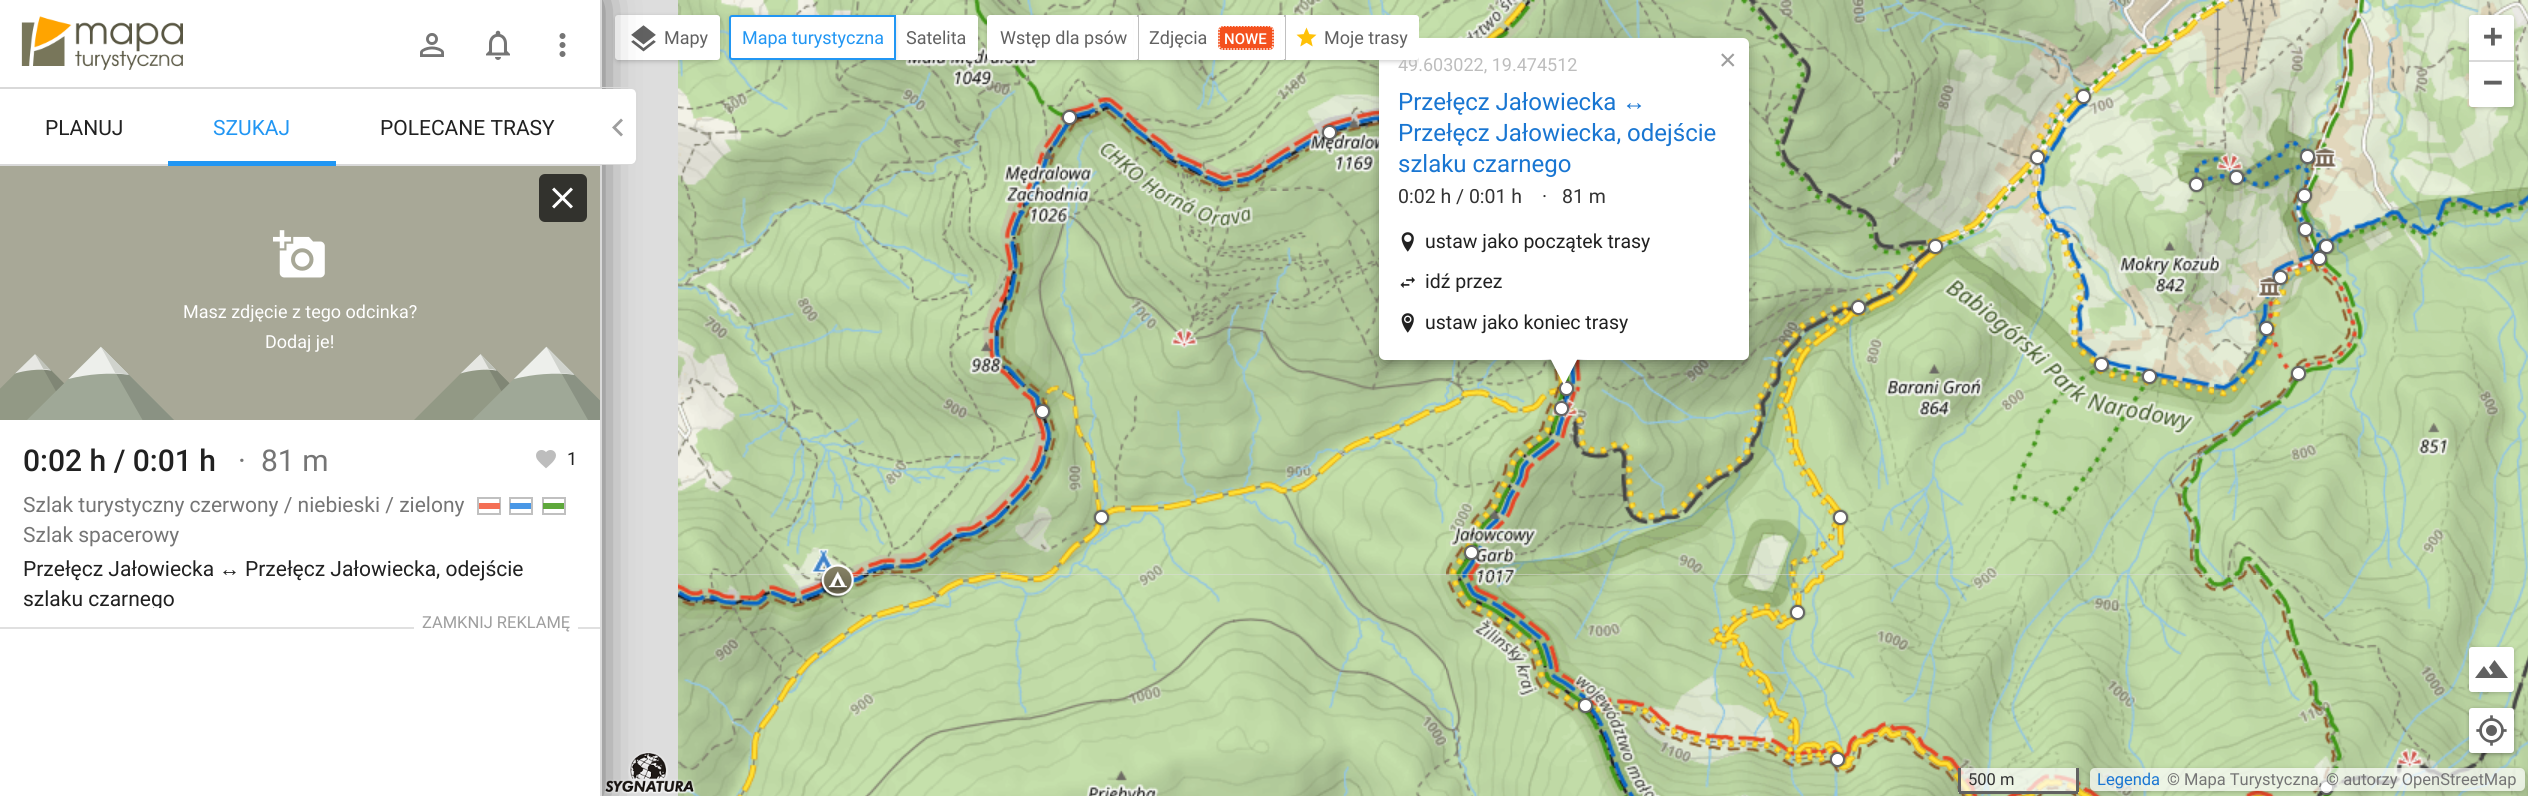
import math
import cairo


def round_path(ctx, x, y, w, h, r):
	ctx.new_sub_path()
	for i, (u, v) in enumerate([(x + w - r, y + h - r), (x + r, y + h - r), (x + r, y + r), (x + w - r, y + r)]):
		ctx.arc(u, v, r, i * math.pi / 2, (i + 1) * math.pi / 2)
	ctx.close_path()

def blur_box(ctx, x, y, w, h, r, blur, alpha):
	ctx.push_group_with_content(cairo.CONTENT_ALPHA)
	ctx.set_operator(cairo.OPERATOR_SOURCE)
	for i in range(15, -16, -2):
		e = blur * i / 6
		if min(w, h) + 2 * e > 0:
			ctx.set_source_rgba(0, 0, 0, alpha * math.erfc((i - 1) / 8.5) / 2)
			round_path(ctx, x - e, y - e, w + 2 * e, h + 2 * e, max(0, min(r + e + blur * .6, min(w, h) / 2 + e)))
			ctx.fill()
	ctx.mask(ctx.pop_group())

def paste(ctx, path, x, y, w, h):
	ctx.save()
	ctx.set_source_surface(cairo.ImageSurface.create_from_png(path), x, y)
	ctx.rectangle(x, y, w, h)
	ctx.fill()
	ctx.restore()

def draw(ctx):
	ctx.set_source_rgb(0.867, 0.867, 0.867)
	ctx.paint()
	paste(ctx, 'media/14.png', 678, 0, 384, 191)
	ctx.set_source_rgb(0, 0, 0)
	blur_box(ctx, 617, 18, 102, 42, 1.5, 3, 0.3)
	ctx.set_source_rgb(1, 1, 1)
	round_path(ctx, 615, 15, 105, 45, 3)
	ctx.fill()
	paste(ctx, 'media/10.png', 631, 25, 25, 27)
	paste(ctx, 'media/24.png', 678, 575, 384, 221)
	paste(ctx, 'media/12.png', 604, 752, 92, 42)
	ctx.set_source_rgb(0, 0, 0)
	blur_box(ctx, -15, 0, 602, 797, 0, 22.5, 1)
	ctx.set_source_rgb(1, 1, 1)
	ctx.rectangle(0, 0, 600, 796)
	ctx.fill()
	ctx.set_source_rgb(0.851, 0.851, 0.851)
	ctx.rectangle(600, 0, 2, 796)
	ctx.rectangle(0, 87, 600, 2)
	ctx.fill()
	paste(ctx, 'media/1.png', 21, 16, 162, 54)
	paste(ctx, 'media/2.png', 420, 33, 24, 24)
	paste(ctx, 'media/3.png', 486, 30, 24, 30)
	paste(ctx, 'media/4.png', 559, 33, 7, 24)
	ctx.rectangle(0, 164, 600, 2)
	ctx.fill()
	ctx.select_font_face('Roboto')
	ctx.set_font_size(21)
	ctx.set_source_rgb(0.129, 0.129, 0.129)
	ctx.move_to(45, 135)
	ctx.show_text('PLANUJ')
	ctx.set_source_rgb(0.129, 0.588, 0.953)
	ctx.rectangle(168, 161, 168, 5)
	ctx.fill()
	ctx.move_to(213, 135)
	ctx.show_text('SZUKAJ')
	ctx.set_source_rgb(0.129, 0.129, 0.129)
	ctx.move_to(380, 135)
	ctx.show_text('POLECANE TRASY')
	ctx.set_source_rgb(0.659, 0.659, 0.592)
	ctx.rectangle(0, 166, 600, 254)
	ctx.fill()
	ctx.set_source_rgb(0.196, 0.196, 0.176)
	round_path(ctx, 539, 174, 48, 48, 6)
	ctx.fill()
	paste(ctx, 'media/5.png', 552, 187, 21, 22)
	paste(ctx, 'media/6.png', 273, 230, 52, 48)
	ctx.set_font_size(18)
	ctx.set_source_rgb(1, 1, 1)
	ctx.move_to(183, 318)
	ctx.show_text('Masz zdjęcie z tego odcinka?')
	ctx.move_to(265, 348)
	ctx.show_text('Dodaj je!')
	paste(ctx, 'media/7.png', 0, 346, 174, 74)
	paste(ctx, 'media/8.png', 414, 346, 186, 74)
	ctx.select_font_face('Roboto Medium')
	ctx.set_font_size(30)
	ctx.set_source_rgb(0.129, 0.129, 0.129)
	ctx.move_to(23, 471)
	ctx.show_text('0:02 h / 0:01 h')
	ctx.select_font_face('Roboto')
	ctx.set_source_rgb(0.459, 0.459, 0.459)
	ctx.move_to(238, 471)
	ctx.show_text('·')
	ctx.move_to(261, 471)
	ctx.show_text('81 m')
	paste(ctx, 'media/9.png', 536, 450, 20, 19)
	ctx.set_font_size(18)
	ctx.set_source_rgb(0.129, 0.129, 0.129)
	ctx.move_to(567, 465)
	ctx.show_text('1')
	ctx.set_font_size(21)
	ctx.set_source_rgb(0.459, 0.459, 0.459)
	ctx.move_to(23, 512)
	ctx.show_text('Szlak turystyczny czerwony / niebieski / zielony')
	ctx.rectangle(478, 498, 22, 16)
	ctx.set_source_rgb(0.753, 0.753, 0.753)
	ctx.stroke()
	ctx.set_source_rgb(0.957, 0.435, 0.333)
	ctx.rectangle(479, 503, 21, 6)
	ctx.fill()
	ctx.rectangle(510, 498, 22, 16)
	ctx.set_source_rgb(0.753, 0.753, 0.753)
	ctx.stroke()
	ctx.set_source_rgb(0.286, 0.592, 0.902)
	ctx.rectangle(510, 503, 21, 6)
	ctx.fill()
	ctx.rectangle(543, 498, 22, 16)
	ctx.set_source_rgb(0.753, 0.753, 0.753)
	ctx.stroke()
	ctx.set_source_rgb(0.369, 0.659, 0.231)
	ctx.rectangle(543, 503, 21, 6)
	ctx.fill()
	ctx.set_source_rgb(0.459, 0.459, 0.459)
	ctx.move_to(23, 542)
	ctx.show_text('Szlak spacerowy')
	ctx.set_source_rgb(0.129, 0.129, 0.129)
	ctx.move_to(23, 576)
	ctx.show_text('Przełęcz Jałowiecka')
	ctx.select_font_face('Liberation Sans')
	ctx.move_to(219, 576)
	ctx.show_text('↔')
	ctx.select_font_face('Roboto')
	ctx.move_to(245, 576)
	ctx.show_text('Przełęcz Jałowiecka, odejście')
	ctx.save()
	ctx.rectangle(0, 165, 600, 443)
	ctx.clip()
	ctx.move_to(23, 606)
	ctx.show_text('szlaku czarnego')
	ctx.restore()
	ctx.set_source_rgb(1, 1, 1)
	ctx.new_path()
	ctx.move_to(600, 89)
	ctx.line_to(631, 89)
	ctx.curve_to(634, 89, 636, 91, 636, 94)
	ctx.line_to(636, 159)
	ctx.curve_to(636, 162, 634, 164, 631, 164)
	ctx.line_to(600, 164)
	ctx.close_path()
	ctx.fill()
	ctx.set_source_rgb(0.851, 0.851, 0.851)
	ctx.set_fill_rule(cairo.FILL_RULE_EVEN_ODD)
	ctx.new_path()
	ctx.move_to(600, 87)
	ctx.line_to(632, 87)
	ctx.curve_to(635, 87, 638, 90, 638, 93)
	ctx.line_to(638, 159)
	ctx.curve_to(638, 162, 635, 165, 632, 165)
	ctx.line_to(600, 165)
	ctx.close_path()
	ctx.move_to(600, 88)
	ctx.line_to(632, 88)
	ctx.curve_to(634, 88, 636, 91, 636, 93)
	ctx.line_to(636, 159)
	ctx.curve_to(636, 161, 634, 164, 632, 164)
	ctx.line_to(600, 164)
	ctx.close_path()
	ctx.fill()
	ctx.set_source_rgb(0.62, 0.62, 0.62)
	ctx.set_fill_rule(cairo.FILL_RULE_WINDING)
	ctx.new_path()
	ctx.move_to(623, 120.5)
	ctx.line_to(616, 127.5)
	ctx.line_to(623, 134.5)
	ctx.line_to(621, 136.5)
	ctx.line_to(612, 127.5)
	ctx.line_to(621, 118.5)
	ctx.close_path()
	ctx.fill()
	ctx.set_source_rgb(0.878, 0.878, 0.878)
	ctx.rectangle(0, 627, 600, 2)
	ctx.fill()
	ctx.set_source_rgb(1, 1, 1)
	ctx.rectangle(414, 627, 164, 2)
	ctx.fill()
	ctx.set_font_size(16.5)
	ctx.set_source_rgb(0.62, 0.62, 0.62)
	ctx.move_to(422, 628)
	ctx.show_text('ZAMKNIJ REKLAMĘ')
	ctx.set_font_size(18)
	ctx.set_source_rgb(0.38, 0.38, 0.38)
	ctx.move_to(664, 44)
	ctx.show_text('Mapy')
	ctx.set_source_rgb(0, 0, 0)
	blur_box(ctx, 896, 18, 81, 42, 1.5, 3, 0.3)
	ctx.set_source_rgb(1, 1, 1)
	ctx.new_path()
	ctx.move_to(894, 15)
	ctx.line_to(975, 15)
	ctx.curve_to(976.5, 15, 978, 16.5, 978, 18)
	ctx.line_to(978, 57)
	ctx.curve_to(978, 58.5, 976.5, 60, 975, 60)
	ctx.line_to(894, 60)
	ctx.close_path()
	ctx.fill()
	ctx.set_source_rgb(0, 0, 0)
	blur_box(ctx, 731, 18, 163, 42, 1.5, 3, 0.3)
	ctx.set_source_rgb(1, 1, 1)
	ctx.new_path()
	ctx.move_to(732, 16)
	ctx.line_to(895, 16)
	ctx.line_to(895, 59)
	ctx.line_to(732, 59)
	ctx.curve_to(731, 59, 730, 58, 730, 57)
	ctx.line_to(730, 18)
	ctx.curve_to(730, 17, 731, 16, 732, 16)
	ctx.close_path()
	ctx.fill_preserve()
	ctx.set_source_rgb(0.129, 0.588, 0.953)
	ctx.stroke()
	ctx.move_to(742, 44)
	ctx.show_text('Mapa turystyczna')
	ctx.set_source_rgb(0.38, 0.38, 0.38)
	ctx.move_to(906, 44)
	ctx.show_text('Satelita')
	paste(ctx, 'media/15.png', 1062, 0, 384, 191)
	ctx.set_source_rgb(0, 0, 0)
	blur_box(ctx, 989, 18, 148, 42, 1.5, 3, 0.3)
	ctx.set_source_rgb(1, 1, 1)
	ctx.new_path()
	ctx.move_to(990, 15)
	ctx.line_to(1139, 15)
	ctx.line_to(1139, 60)
	ctx.line_to(990, 60)
	ctx.curve_to(988.5, 60, 987, 58.5, 987, 57)
	ctx.line_to(987, 18)
	ctx.curve_to(987, 16.5, 988.5, 15, 990, 15)
	ctx.close_path()
	ctx.fill()
	ctx.set_source_rgb(0, 0, 0)
	blur_box(ctx, 1139, 18, 145, 42, 0, 3, 0.3)
	ctx.set_source_rgb(0.753, 0.753, 0.753)
	ctx.rectangle(1137, 15, 2, 45)
	ctx.fill()
	ctx.set_source_rgb(0.38, 0.38, 0.38)
	ctx.move_to(1000, 44)
	ctx.show_text('Wstęp dla psów')
	ctx.set_source_rgb(1, 1, 1)
	ctx.rectangle(1134, 17, 4, 42)
	ctx.fill()
	ctx.rectangle(1139, 15, 145, 45)
	ctx.fill()
	paste(ctx, 'media/16.png', 1446, 0, 384, 191)
	paste(ctx, 'media/20.png', 1062, 191, 384, 384)
	paste(ctx, 'media/21.png', 1446, 191, 384, 384)
	ctx.set_source_rgb(0, 0, 0)
	blur_box(ctx, 1559, 381, 15, 15, 7.5, 1, 0.5)
	ctx.set_source_rgb(1, 1, 1)
	ctx.arc(1566.5, 388.5, 6.5, 0, 2 * math.pi)
	ctx.fill_preserve()
	ctx.set_source_rgb(0.4, 0.4, 0.4)
	ctx.stroke()
	ctx.set_source_rgb(0, 0, 0)
	blur_box(ctx, 1382, 47, 364, 316, 3, 7.5, 0.4)
	ctx.set_source_rgb(1, 1, 1)
	round_path(ctx, 1379, 38, 370, 322, 6)
	ctx.fill()
	ctx.save()
	ctx.rectangle(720, 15, 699, 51)
	ctx.clip()
	ctx.set_source_rgb(0, 0, 0)
	blur_box(ctx, 1286, 18, 132, 42, 1.5, 3, 0.3)
	ctx.restore()
	ctx.set_source_rgb(0.741, 0.741, 0.741)
	ctx.move_to(1398, 71)
	ctx.show_text('49.603022, 19.474512')
	ctx.set_source_rgb(1, 1, 1)
	ctx.new_path()
	ctx.move_to(1284, 15)
	ctx.line_to(1416, 15)
	ctx.curve_to(1417.5, 15, 1419, 16.5, 1419, 18)
	ctx.line_to(1419, 57)
	ctx.curve_to(1419, 58.5, 1417.5, 60, 1416, 60)
	ctx.line_to(1284, 60)
	ctx.close_path()
	ctx.fill()
	ctx.set_source_rgb(0.753, 0.753, 0.753)
	ctx.rectangle(1284, 15, 2, 45)
	ctx.fill()
	ctx.set_source_rgb(0.38, 0.38, 0.38)
	ctx.move_to(1149, 44)
	ctx.show_text('Zdjęcia')
	ctx.set_source_rgb(0.957, 0.318, 0.118)
	round_path(ctx, 1218, 26, 56, 24, 5)
	ctx.fill()
	ctx.new_path()
	ctx.move_to(1222.5, 26)
	ctx.line_to(1269, 26)
	ctx.curve_to(1271, 26, 1273, 28, 1273, 30)
	ctx.line_to(1273, 45)
	ctx.curve_to(1273, 47, 1271, 49, 1269, 49)
	ctx.line_to(1222.5, 49)
	ctx.curve_to(1220.5, 49, 1219, 47, 1219, 45)
	ctx.line_to(1219, 30)
	ctx.curve_to(1219, 28, 1220.5, 26, 1222.5, 26)
	ctx.close_path()
	ctx.set_source_rgb(1, 1, 1)
	ctx.set_line_width(1.5)
	ctx.set_dash([1.5, 1.5])
	ctx.stroke()
	ctx.select_font_face('Roboto Medium')
	ctx.set_font_size(15)
	ctx.move_to(1224, 44)
	ctx.show_text('NOWE')
	ctx.rectangle(1281, 17, 4, 42)
	ctx.fill()
	paste(ctx, 'media/11.png', 1296, 27, 21, 20)
	ctx.select_font_face('Roboto')
	ctx.set_font_size(18)
	ctx.set_source_rgb(0.38, 0.38, 0.38)
	ctx.move_to(1324, 44)
	ctx.show_text('Moje trasy')
	paste(ctx, 'media/18.png', 2214, 0, 314, 191)
	ctx.set_source_rgb(0, 0, 0)
	blur_box(ctx, 2471, 18, 42, 89, 1.5, 3, 0.3)
	ctx.set_source_rgb(1, 1, 1)
	ctx.new_path()
	ctx.move_to(2472, 15)
	ctx.line_to(2511, 15)
	ctx.curve_to(2512.5, 15, 2514, 16.5, 2514, 18)
	ctx.line_to(2514, 62)
	ctx.line_to(2469, 62)
	ctx.line_to(2469, 18)
	ctx.curve_to(2469, 16.5, 2470.5, 15, 2472, 15)
	ctx.close_path()
	ctx.fill()
	ctx.set_source_rgb(0.851, 0.851, 0.851)
	ctx.rectangle(2469, 60, 45, 2)
	ctx.fill()
	ctx.select_font_face('DejaVu Sans Mono', cairo.FONT_SLANT_NORMAL, cairo.FONT_WEIGHT_BOLD)
	ctx.set_font_size(33)
	ctx.set_source_rgb(0.38, 0.38, 0.38)
	ctx.move_to(2483, 47)
	ctx.show_text('+')
	ctx.set_source_rgb(1, 1, 1)
	ctx.new_path()
	ctx.move_to(2469, 62)
	ctx.line_to(2514, 62)
	ctx.line_to(2514, 104)
	ctx.curve_to(2514, 105.5, 2512.5, 107, 2511, 107)
	ctx.line_to(2472, 107)
	ctx.curve_to(2470.5, 107, 2469, 105.5, 2469, 104)
	ctx.close_path()
	ctx.fill()
	ctx.set_source_rgb(0.38, 0.38, 0.38)
	ctx.move_to(2483, 93)
	ctx.show_text('−')
	paste(ctx, 'media/28.png', 2214, 575, 314, 221)
	ctx.set_source_rgb(0, 0, 0)
	blur_box(ctx, 2471, 711, 42, 42, 1.5, 3, 0.3)
	blur_box(ctx, 2471, 711, 42, 42, 1.5, 3, 0.3)
	ctx.set_source_rgb(1, 1, 1)
	round_path(ctx, 2469, 708, 45, 45, 3)
	ctx.fill()
	paste(ctx, 'media/13.png', 2476, 715, 31, 31)
	paste(ctx, 'media/27.png', 1830, 575, 384, 221)
	ctx.save()
	ctx.set_fill_rule(cairo.FILL_RULE_EVEN_ODD)
	ctx.new_path()
	ctx.move_to(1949, 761)
	ctx.line_to(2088, 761)
	ctx.line_to(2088, 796)
	ctx.line_to(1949, 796)
	ctx.close_path()
	ctx.move_to(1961, 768)
	ctx.line_to(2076, 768)
	ctx.curve_to(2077.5, 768, 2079, 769.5, 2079, 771)
	ctx.line_to(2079, 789)
	ctx.curve_to(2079, 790.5, 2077.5, 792, 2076, 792)
	ctx.line_to(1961, 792)
	ctx.curve_to(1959.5, 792, 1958, 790.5, 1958, 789)
	ctx.line_to(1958, 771)
	ctx.curve_to(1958, 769.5, 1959.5, 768, 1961, 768)
	ctx.close_path()
	ctx.clip()
	ctx.set_source_rgb(0, 0, 0)
	blur_box(ctx, 1959, 771, 119, 21, 1.5, 3, 0.3)
	ctx.restore()
	ctx.set_source_rgba(1, 1, 1, 0.7)
	ctx.new_path()
	ctx.move_to(1958, 768)
	ctx.line_to(2079, 768)
	ctx.line_to(2079, 791)
	ctx.curve_to(2079, 792.5, 2077.5, 794, 2076, 794)
	ctx.line_to(1961, 794)
	ctx.curve_to(1959.5, 794, 1958, 792.5, 1958, 791)
	ctx.close_path()
	ctx.fill()
	ctx.set_source_rgb(0.38, 0.38, 0.38)
	ctx.rectangle(2076, 768, 3, 24)
	ctx.rectangle(1959, 791, 119, 3)
	ctx.rectangle(1958, 768, 3, 24)
	ctx.fill()
	ctx.select_font_face('Roboto')
	ctx.set_font_size(16.5)
	ctx.set_source_rgb(0.2, 0.2, 0.2)
	ctx.move_to(1968, 785)
	ctx.show_text('500 m')
	ctx.set_source_rgb(0, 0, 0)
	blur_box(ctx, 2319, 780, 15, 15, 7.5, 1, 0.5)
	ctx.set_source_rgb(1, 1, 1)
	ctx.arc(2326.5, 787.5, 6.5, 0, 2 * math.pi)
	ctx.fill_preserve()
	ctx.set_source_rgb(0.4, 0.4, 0.4)
	ctx.set_line_width(2)
	ctx.set_dash([])
	ctx.stroke()
	ctx.save()
	ctx.set_fill_rule(cairo.FILL_RULE_EVEN_ODD)
	ctx.new_path()
	ctx.move_to(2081, 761)
	ctx.line_to(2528, 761)
	ctx.line_to(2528, 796)
	ctx.line_to(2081, 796)
	ctx.close_path()
	ctx.move_to(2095, 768)
	ctx.line_to(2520, 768)
	ctx.curve_to(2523, 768, 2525, 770, 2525, 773)
	ctx.line_to(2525, 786)
	ctx.curve_to(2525, 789, 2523, 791, 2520, 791)
	ctx.line_to(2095, 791)
	ctx.curve_to(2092, 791, 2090, 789, 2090, 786)
	ctx.line_to(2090, 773)
	ctx.curve_to(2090, 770, 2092, 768, 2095, 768)
	ctx.close_path()
	ctx.clip()
	ctx.set_source_rgb(0, 0, 0)
	blur_box(ctx, 2091, 771, 432, 20, 3, 3, 0.3)
	ctx.restore()
	ctx.set_source_rgba(1, 1, 1, 0.7)
	round_path(ctx, 2090, 768, 435, 23, 5)
	ctx.fill()
	ctx.set_source_rgb(0.098, 0.463, 0.824)
	ctx.move_to(2097, 785)
	ctx.show_text('Legenda')
	ctx.set_source_rgb(0.459, 0.459, 0.459)
	ctx.move_to(2167, 785)
	ctx.show_text('© Mapa Turystyczna, © autorzy OpenStreetMap')
	paste(ctx, 'media/17.png', 1830, 0, 384, 191)
	paste(ctx, 'media/19.png', 678, 191, 384, 384)
	paste(ctx, 'media/22.png', 1830, 191, 384, 384)
	paste(ctx, 'media/23.png', 2214, 191, 314, 384)
	paste(ctx, 'media/25.png', 1062, 575, 384, 221)
	paste(ctx, 'media/26.png', 1446, 575, 384, 221)
	ctx.set_font_size(24)
	ctx.set_source_rgb(0.098, 0.463, 0.824)
	ctx.move_to(1398, 110)
	ctx.show_text('Przełęcz Jałowiecka')
	ctx.select_font_face('Liberation Sans')
	ctx.move_to(1622, 110)
	ctx.show_text('↔')
	ctx.select_font_face('Roboto')
	ctx.move_to(1398, 141)
	ctx.show_text('Przełęcz Jałowiecka, odejście')
	ctx.move_to(1398, 172)
	ctx.show_text('szlaku czarnego')
	ctx.set_font_size(19.5)
	ctx.set_source_rgb(0.2, 0.2, 0.2)
	for x, y, s in [
		(1398, 203, '0:02 h / 0:01 h'),
		(1542, 203, '·'),
		(1562, 203, '81 m'),
	]:
		ctx.move_to(x, y)
		ctx.show_text(s)
	paste(ctx, 'media/29.png', 1401, 232, 13, 20)
	ctx.set_source_rgb(0.129, 0.129, 0.129)
	ctx.move_to(1425, 248)
	ctx.show_text('ustaw jako początek trasy')
	paste(ctx, 'media/30.png', 1400, 276, 15, 12)
	ctx.move_to(1425, 288)
	ctx.show_text('idź przez')
	paste(ctx, 'media/31.png', 1401, 313, 13, 20)
	ctx.move_to(1425, 329)
	ctx.show_text('ustaw jako koniec trasy')
	ctx.select_font_face('Liberation Sans')
	ctx.set_font_size(30)
	ctx.set_source_rgb(0.62, 0.62, 0.62)
	ctx.move_to(1719, 70)
	ctx.show_text('×')
	ctx.save()
	ctx.rectangle(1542, 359, 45, 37)
	ctx.clip()
	ctx.set_source_rgb(0, 0, 0)
	blur_box(ctx, 1554, 345, 21, 21, 0, 5.5, 0.7)
	ctx.restore()
	ctx.save()
	ctx.rectangle(1542, 359, 45, 37)
	ctx.clip()
	ctx.set_source_rgb(1, 1, 1)
	ctx.new_path()
	ctx.move_to(1564, 326)
	ctx.line_to(1579, 356)
	ctx.line_to(1564, 385)
	ctx.line_to(1549, 356)
	ctx.close_path()
	ctx.fill()
	ctx.restore()
	ctx.set_source_rgb(0, 0, 0)
	blur_box(ctx, 2076, 89, 15, 15, 7.5, 1, 0.5)
	ctx.set_source_rgb(1, 1, 1)
	ctx.arc(2083.5, 96.5, 6.5, 0, 2 * math.pi)
	ctx.fill_preserve()
	ctx.set_source_rgb(0.4, 0.4, 0.4)
	ctx.stroke()
	ctx.set_source_rgb(0, 0, 0)
	blur_box(ctx, 1062, 110, 15, 15, 7.5, 1, 0.5)
	ctx.set_source_rgb(1, 1, 1)
	ctx.arc(1069.5, 117.5, 6.5, 0, 2 * math.pi)
	ctx.fill_preserve()
	ctx.set_source_rgb(0.4, 0.4, 0.4)
	ctx.stroke()
	ctx.set_source_rgb(0, 0, 0)
	blur_box(ctx, 1322, 125, 15, 15, 7.5, 1, 0.5)
	ctx.set_source_rgb(1, 1, 1)
	ctx.arc(1329.5, 132.5, 6.5, 0, 2 * math.pi)
	ctx.fill_preserve()
	ctx.set_source_rgb(0.4, 0.4, 0.4)
	ctx.stroke()
	ctx.set_source_rgb(0, 0, 0)
	blur_box(ctx, 2030, 150, 15, 15, 7.5, 1, 0.5)
	ctx.set_source_rgb(1, 1, 1)
	ctx.arc(2037.5, 157.5, 6.5, 0, 2 * math.pi)
	ctx.fill_preserve()
	ctx.set_source_rgb(0.4, 0.4, 0.4)
	ctx.stroke()
	ctx.set_source_rgb(0, 0, 0)
	blur_box(ctx, 2300, 149, 15, 15, 7.5, 1, 0.5)
	ctx.set_source_rgb(1, 1, 1)
	ctx.arc(2307.5, 156.5, 6.5, 0, 2 * math.pi)
	ctx.fill_preserve()
	ctx.set_source_rgb(0.4, 0.4, 0.4)
	ctx.stroke()
	ctx.set_source_rgb(0, 0, 0)
	blur_box(ctx, 2189, 177, 15, 15, 7.5, 1, 0.5)
	ctx.set_source_rgb(1, 1, 1)
	ctx.arc(2196.5, 184.5, 6.5, 0, 2 * math.pi)
	ctx.fill_preserve()
	ctx.set_source_rgb(0.4, 0.4, 0.4)
	ctx.stroke()
	ctx.set_source_rgb(0, 0, 0)
	blur_box(ctx, 2229, 170, 15, 15, 7.5, 1, 0.5)
	ctx.set_source_rgb(1, 1, 1)
	ctx.arc(2236.5, 177.5, 6.5, 0, 2 * math.pi)
	ctx.fill_preserve()
	ctx.set_source_rgb(0.4, 0.4, 0.4)
	ctx.stroke()
	ctx.set_source_rgb(0, 0, 0)
	blur_box(ctx, 2297, 188, 15, 15, 7.5, 1, 0.5)
	ctx.set_source_rgb(1, 1, 1)
	ctx.arc(2304.5, 195.5, 6.5, 0, 2 * math.pi)
	ctx.fill_preserve()
	ctx.set_source_rgb(0.4, 0.4, 0.4)
	ctx.stroke()
	ctx.set_source_rgb(0, 0, 0)
	blur_box(ctx, 2298, 222, 15, 15, 7.5, 1, 0.5)
	ctx.set_source_rgb(1, 1, 1)
	ctx.arc(2305.5, 229.5, 6.5, 0, 2 * math.pi)
	ctx.fill_preserve()
	ctx.set_source_rgb(0.4, 0.4, 0.4)
	ctx.stroke()
	ctx.set_source_rgb(0, 0, 0)
	blur_box(ctx, 1928, 239, 15, 15, 7.5, 1, 0.5)
	ctx.set_source_rgb(1, 1, 1)
	ctx.arc(1935.5, 246.5, 6.5, 0, 2 * math.pi)
	ctx.fill_preserve()
	ctx.set_source_rgb(0.4, 0.4, 0.4)
	ctx.stroke()
	ctx.set_source_rgb(0, 0, 0)
	blur_box(ctx, 2319, 239, 15, 15, 7.5, 1, 0.5)
	ctx.set_source_rgb(1, 1, 1)
	ctx.arc(2326.5, 246.5, 6.5, 0, 2 * math.pi)
	ctx.fill_preserve()
	ctx.set_source_rgb(0.4, 0.4, 0.4)
	ctx.stroke()
	ctx.set_source_rgb(0, 0, 0)
	blur_box(ctx, 2312, 251, 15, 15, 7.5, 1, 0.5)
	ctx.set_source_rgb(1, 1, 1)
	ctx.arc(2319.5, 258.5, 6.5, 0, 2 * math.pi)
	ctx.fill_preserve()
	ctx.set_source_rgb(0.4, 0.4, 0.4)
	ctx.stroke()
	ctx.set_source_rgb(0, 0, 0)
	blur_box(ctx, 2273, 270, 15, 15, 7.5, 1, 0.5)
	ctx.set_source_rgb(1, 1, 1)
	ctx.arc(2280.5, 277.5, 6.5, 0, 2 * math.pi)
	ctx.fill_preserve()
	ctx.set_source_rgb(0.4, 0.4, 0.4)
	ctx.stroke()
	ctx.set_source_rgb(0, 0, 0)
	blur_box(ctx, 1851, 300, 15, 15, 7.5, 1, 0.5)
	ctx.set_source_rgb(1, 1, 1)
	ctx.arc(1858.5, 307.5, 6.5, 0, 2 * math.pi)
	ctx.fill_preserve()
	ctx.set_source_rgb(0.4, 0.4, 0.4)
	ctx.stroke()
	ctx.set_source_rgb(0, 0, 0)
	blur_box(ctx, 2259, 321, 15, 15, 7.5, 1, 0.5)
	ctx.set_source_rgb(1, 1, 1)
	ctx.arc(2266.5, 328.5, 6.5, 0, 2 * math.pi)
	ctx.fill_preserve()
	ctx.set_source_rgb(0.4, 0.4, 0.4)
	ctx.stroke()
	ctx.set_source_rgb(0, 0, 0)
	blur_box(ctx, 2094, 357, 15, 15, 7.5, 1, 0.5)
	ctx.set_source_rgb(1, 1, 1)
	ctx.arc(2101.5, 364.5, 6.5, 0, 2 * math.pi)
	ctx.fill_preserve()
	ctx.set_source_rgb(0.4, 0.4, 0.4)
	ctx.stroke()
	ctx.set_source_rgb(0, 0, 0)
	blur_box(ctx, 2142, 369, 15, 15, 7.5, 1, 0.5)
	ctx.set_source_rgb(1, 1, 1)
	ctx.arc(2149.5, 376.5, 6.5, 0, 2 * math.pi)
	ctx.fill_preserve()
	ctx.set_source_rgb(0.4, 0.4, 0.4)
	ctx.stroke()
	ctx.set_source_rgb(0, 0, 0)
	blur_box(ctx, 2291, 366, 15, 15, 7.5, 1, 0.5)
	ctx.set_source_rgb(1, 1, 1)
	ctx.arc(2298.5, 373.5, 6.5, 0, 2 * math.pi)
	ctx.fill_preserve()
	ctx.set_source_rgb(0.4, 0.4, 0.4)
	ctx.stroke()
	ctx.set_source_rgb(0, 0, 0)
	blur_box(ctx, 1035, 404, 15, 15, 7.5, 1, 0.5)
	ctx.set_source_rgb(1, 1, 1)
	ctx.arc(1042.5, 411.5, 6.5, 0, 2 * math.pi)
	ctx.fill_preserve()
	ctx.set_source_rgb(0.4, 0.4, 0.4)
	ctx.stroke()
	ctx.set_source_rgb(0, 0, 0)
	blur_box(ctx, 1554, 401, 15, 15, 7.5, 1, 0.5)
	ctx.set_source_rgb(1, 1, 1)
	ctx.arc(1561.5, 408.5, 6.5, 0, 2 * math.pi)
	ctx.fill_preserve()
	ctx.set_source_rgb(0.4, 0.4, 0.4)
	ctx.stroke()
	ctx.set_source_rgb(0, 0, 0)
	blur_box(ctx, 1094, 510, 15, 15, 7.5, 1, 0.5)
	ctx.set_source_rgb(1, 1, 1)
	ctx.arc(1101.5, 517.5, 6.5, 0, 2 * math.pi)
	ctx.fill_preserve()
	ctx.set_source_rgb(0.4, 0.4, 0.4)
	ctx.stroke()
	ctx.set_source_rgb(0, 0, 0)
	blur_box(ctx, 1833, 510, 15, 15, 7.5, 1, 0.5)
	ctx.set_source_rgb(1, 1, 1)
	ctx.arc(1840.5, 517.5, 6.5, 0, 2 * math.pi)
	ctx.fill_preserve()
	ctx.set_source_rgb(0.4, 0.4, 0.4)
	ctx.stroke()
	ctx.set_source_rgb(0, 0, 0)
	blur_box(ctx, 1464, 545, 15, 15, 7.5, 1, 0.5)
	ctx.set_source_rgb(1, 1, 1)
	ctx.arc(1471.5, 552.5, 6.5, 0, 2 * math.pi)
	ctx.fill_preserve()
	ctx.set_source_rgb(0.4, 0.4, 0.4)
	ctx.stroke()
	paste(ctx, 'media/32.png', 819, 564, 36, 35)
	ctx.set_source_rgb(0, 0, 0)
	blur_box(ctx, 1790, 605, 15, 15, 7.5, 1, 0.5)
	ctx.set_source_rgb(1, 1, 1)
	ctx.arc(1797.5, 612.5, 6.5, 0, 2 * math.pi)
	ctx.fill_preserve()
	ctx.set_source_rgb(0.4, 0.4, 0.4)
	ctx.stroke()
	ctx.set_source_rgb(0, 0, 0)
	blur_box(ctx, 1578, 698, 15, 15, 7.5, 1, 0.5)
	ctx.set_source_rgb(1, 1, 1)
	ctx.arc(1585.5, 705.5, 6.5, 0, 2 * math.pi)
	ctx.fill_preserve()
	ctx.set_source_rgb(0.4, 0.4, 0.4)
	ctx.stroke()
	ctx.set_source_rgb(0, 0, 0)
	blur_box(ctx, 1830, 752, 15, 15, 7.5, 1, 0.5)
	ctx.set_source_rgb(1, 1, 1)
	ctx.arc(1837.5, 759.5, 6.5, 0, 2 * math.pi)
	ctx.fill_preserve()
	ctx.set_source_rgb(0.4, 0.4, 0.4)
	ctx.stroke()
	ctx.set_source_rgb(0, 0, 0)
	blur_box(ctx, 2471, 650, 42, 42, 1.5, 3, 0.3)
	ctx.set_source_rgb(1, 1, 1)
	round_path(ctx, 2469, 647, 45, 45, 3)
	ctx.fill()
	ctx.set_source_rgb(0.38, 0.38, 0.38)
	ctx.new_path()
	ctx.move_to(2494.5, 660)
	ctx.line_to(2508, 678)
	ctx.line_to(2475, 678)
	ctx.line_to(2484, 666)
	ctx.line_to(2490.5, 675)
	ctx.line_to(2493, 673)
	ctx.line_to(2489, 667.5)
	ctx.close_path()
	ctx.fill()


surface = cairo.ImageSurface(cairo.FORMAT_RGB24, 2528, 796)
ctx = cairo.Context(surface)
options = cairo.FontOptions()
options.set_hint_metrics(cairo.HINT_METRICS_OFF)
options.set_hint_style(cairo.HINT_STYLE_NONE)
ctx.set_font_options(options)
ctx.set_miter_limit(4)
draw(ctx)
surface.write_to_png('image.png')
